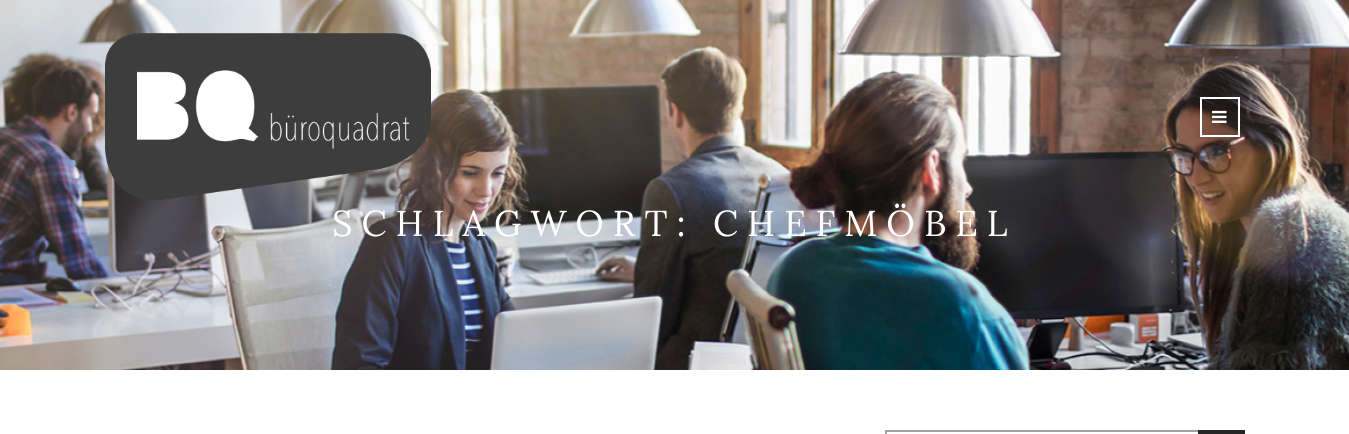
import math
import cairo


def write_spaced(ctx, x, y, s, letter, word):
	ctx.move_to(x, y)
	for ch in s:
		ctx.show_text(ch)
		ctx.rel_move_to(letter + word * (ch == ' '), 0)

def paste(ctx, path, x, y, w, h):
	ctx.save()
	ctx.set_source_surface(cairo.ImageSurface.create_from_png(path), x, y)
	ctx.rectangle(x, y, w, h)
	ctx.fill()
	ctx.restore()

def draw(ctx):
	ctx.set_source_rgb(1, 1, 1)
	ctx.paint()
	paste(ctx, 'media/3.png', 0, 0, 1349, 370)
	paste(ctx, 'media/1.png', 105, 33, 326, 167)
	ctx.rectangle(1201, 98, 38, 38)
	ctx.set_source_rgb(1, 1, 1)
	ctx.stroke()
	paste(ctx, 'media/2.png', 1212, 110, 15, 13)
	ctx.select_font_face('Lora')
	ctx.set_font_size(36)
	write_spaced(ctx, 332, 236, 'SCHLAGWORT: CHEFMÖBEL', 9, 0)
	ctx.rectangle(886, 431, 358, 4)
	ctx.set_source_rgb(0.635, 0.635, 0.635)
	ctx.stroke()
	ctx.set_source_rgb(0.145, 0.145, 0.145)
	ctx.rectangle(1198, 430, 47, 4)
	ctx.fill()


surface = cairo.ImageSurface(cairo.FORMAT_RGB24, 1349, 434)
ctx = cairo.Context(surface)
options = cairo.FontOptions()
options.set_hint_metrics(cairo.HINT_METRICS_OFF)
options.set_hint_style(cairo.HINT_STYLE_NONE)
ctx.set_font_options(options)
ctx.set_miter_limit(4)
draw(ctx)
surface.write_to_png('image.png')
